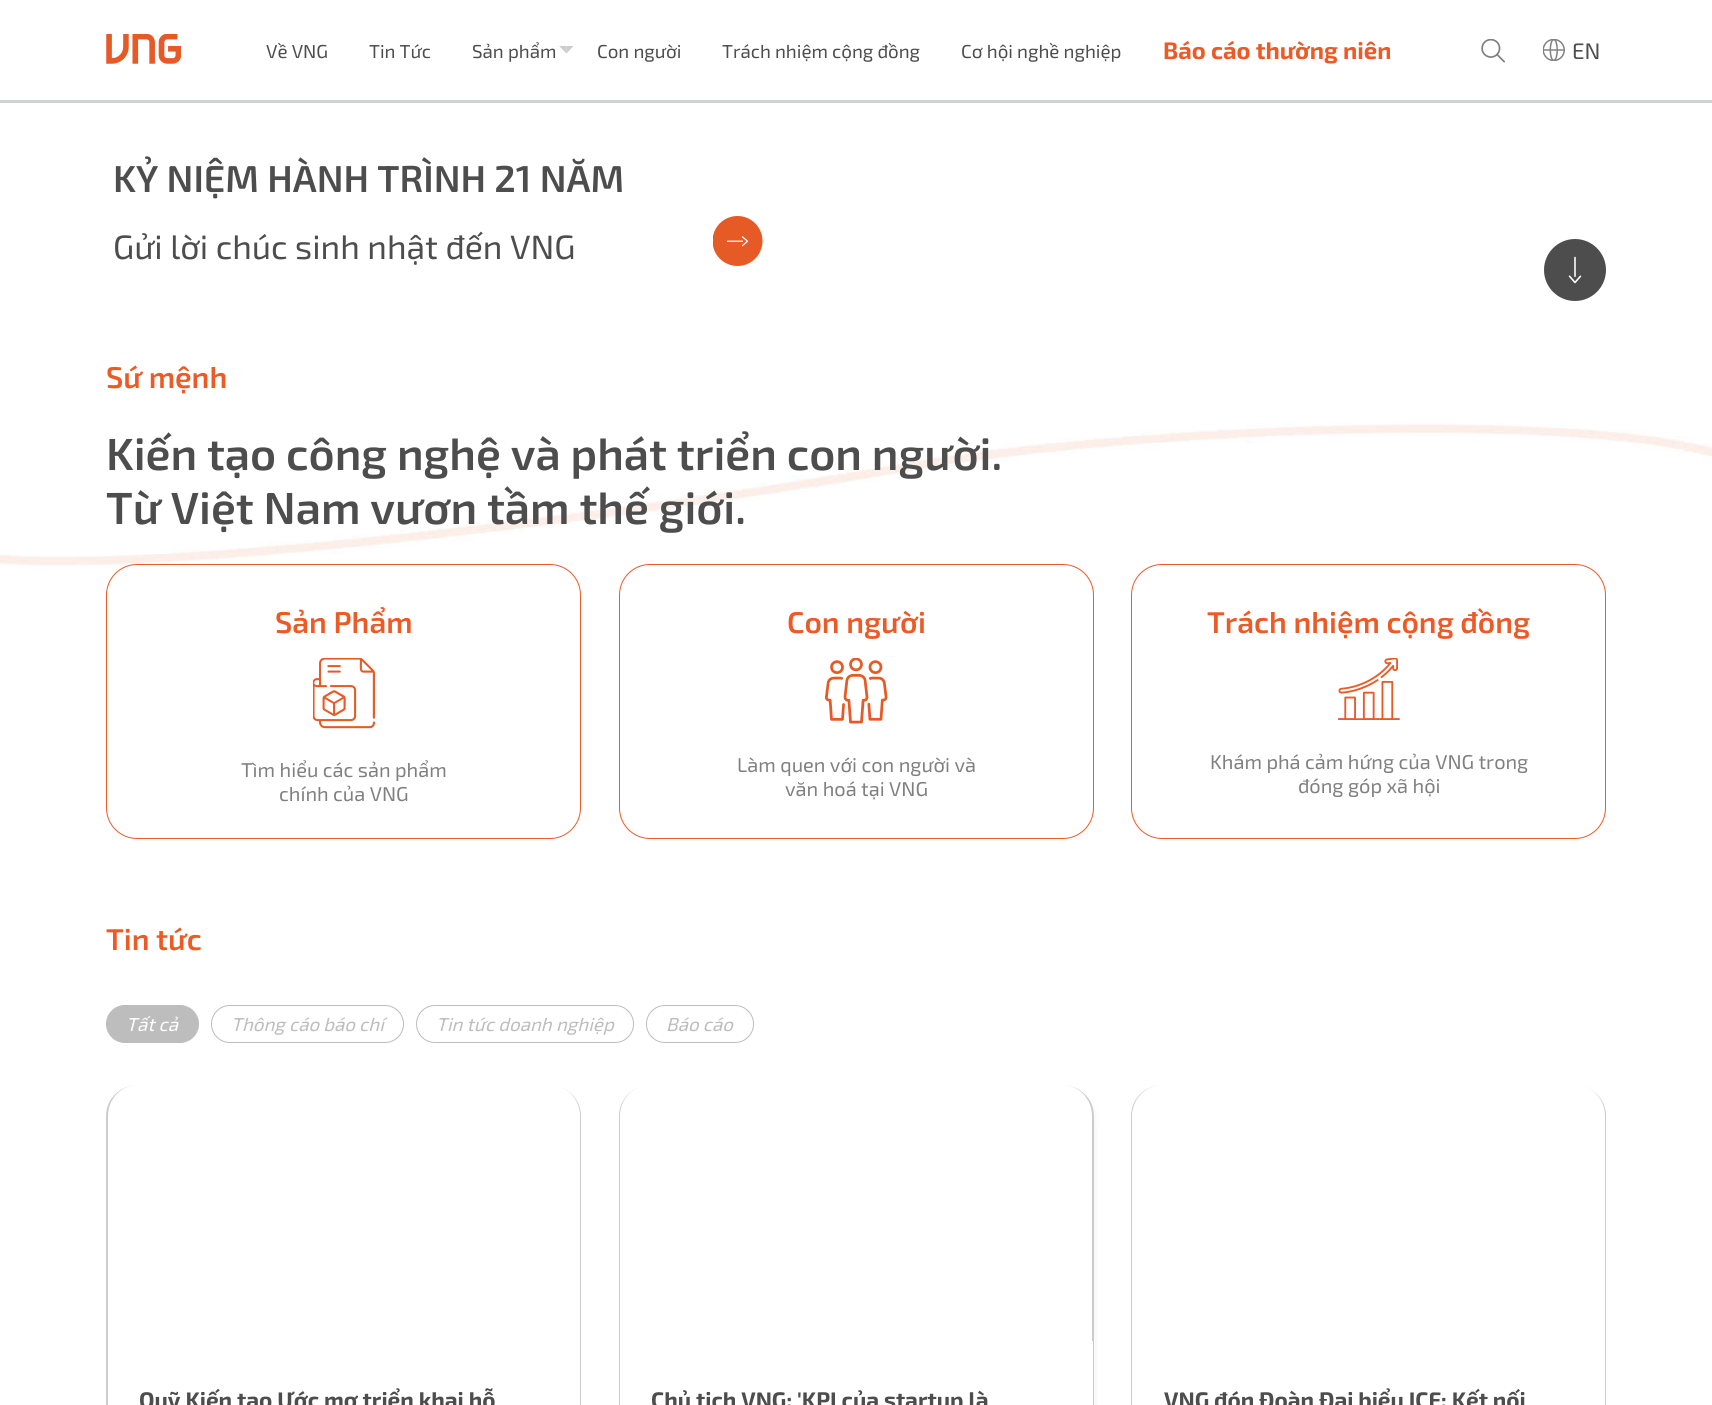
import math
import cairo


def round_path(ctx, x, y, w, h, r):
	ctx.new_sub_path()
	for i, (u, v) in enumerate([(x + w - r, y + h - r), (x + r, y + h - r), (x + r, y + r), (x + w - r, y + r)]):
		ctx.arc(u, v, r, i * math.pi / 2, (i + 1) * math.pi / 2)
	ctx.close_path()

def blur_box(ctx, x, y, w, h, r, blur, alpha):
	ctx.push_group_with_content(cairo.CONTENT_ALPHA)
	ctx.set_operator(cairo.OPERATOR_SOURCE)
	for i in range(15, -16, -2):
		e = blur * i / 6
		if min(w, h) + 2 * e > 0:
			ctx.set_source_rgba(0, 0, 0, alpha * math.erfc((i - 1) / 8.5) / 2)
			round_path(ctx, x - e, y - e, w + 2 * e, h + 2 * e, max(0, min(r + e + blur * .6, min(w, h) / 2 + e)))
			ctx.fill()
	ctx.mask(ctx.pop_group())

def paste(ctx, path, x, y, w, h):
	ctx.save()
	ctx.set_source_surface(cairo.ImageSurface.create_from_png(path), x, y)
	ctx.rectangle(x, y, w, h)
	ctx.fill()
	ctx.restore()

def draw(ctx):
	ctx.set_source_rgb(1, 1, 1)
	ctx.paint()
	ctx.set_source_rgb(0.812, 0.82, 0.824)
	ctx.rectangle(0, 100, 1712, 3)
	ctx.fill()
	paste(ctx, 'media/1.png', 106, 34, 75, 30)
	ctx.select_font_face('Exo 2')
	ctx.set_font_size(18.75)
	ctx.set_source_rgb(0.302, 0.302, 0.302)
	for x, y, s in [
		(266, 58, 'Về VNG'),
		(369, 58, 'Tin Tức'),
		(472, 58, 'Sản phẩm'),
	]:
		ctx.move_to(x, y)
		ctx.show_text(s)
	ctx.set_source_rgb(0.8, 0.8, 0.8)
	ctx.new_path()
	ctx.move_to(573.5, 46)
	ctx.line_to(566.5, 53.5)
	ctx.line_to(566.5, 46)
	ctx.close_path()
	ctx.fill()
	ctx.new_path()
	ctx.move_to(566.5, 53.5)
	ctx.line_to(559, 46)
	ctx.line_to(566.5, 46)
	ctx.close_path()
	ctx.fill()
	ctx.set_source_rgb(0.302, 0.302, 0.302)
	for x, y, s in [
		(597, 58, 'Con người'),
		(722, 58, 'Trách nhiệm cộng đồng'),
		(961, 58, 'Cơ hội nghề nghiệp'),
	]:
		ctx.move_to(x, y)
		ctx.show_text(s)
	ctx.select_font_face('Exo 2', cairo.FONT_SLANT_NORMAL, cairo.FONT_WEIGHT_BOLD)
	ctx.set_font_size(23.75)
	ctx.set_source_rgb(0.922, 0.353, 0.149)
	ctx.move_to(1163, 59)
	ctx.show_text('Báo cáo thường niên')
	paste(ctx, 'media/2.png', 1481, 39, 24, 24)
	paste(ctx, 'media/3.png', 1543, 39, 22, 22)
	ctx.select_font_face('Exo 2')
	ctx.set_font_size(22.5)
	ctx.set_source_rgb(0.302, 0.302, 0.302)
	ctx.move_to(1572, 59)
	ctx.show_text('EN')
	ctx.select_font_face('Exo 2 SemiBold')
	ctx.set_font_size(37.5)
	ctx.move_to(113, 192)
	ctx.show_text('KỶ NIỆM HÀNH TRÌNH 21 NĂM')
	ctx.select_font_face('Exo 2')
	ctx.set_font_size(33.75)
	ctx.move_to(113, 259)
	ctx.show_text('Gửi lời chúc sinh nhật đến VNG')
	paste(ctx, 'media/4.png', 713, 216, 50, 50)
	paste(ctx, 'media/5.png', 1544, 239, 62, 62)
	ctx.select_font_face('Exo 2 SemiBold')
	ctx.set_font_size(30)
	ctx.set_source_rgb(0.922, 0.353, 0.149)
	ctx.move_to(106, 388)
	ctx.show_text('Sứ mệnh')
	paste(ctx, 'media/9.png', 0, 423, 1712, 143)
	ctx.set_font_size(45)
	ctx.set_source_rgb(0.302, 0.302, 0.302)
	ctx.move_to(106, 470)
	ctx.show_text('Kiến tạo công nghệ và phát triển con người.')
	ctx.move_to(106, 524)
	ctx.show_text('Từ Việt Nam vươn tầm thế giới.')
	round_path(ctx, 106.5, 564.5, 474, 274, 30.5)
	ctx.set_source_rgb(0.922, 0.353, 0.149)
	ctx.set_line_width(1)
	ctx.stroke()
	ctx.set_font_size(30)
	ctx.move_to(275, 633)
	ctx.show_text('Sản Phẩm')
	paste(ctx, 'media/6.png', 313, 658, 62, 71)
	ctx.select_font_face('Exo 2')
	ctx.set_font_size(20)
	ctx.set_source_rgb(0.502, 0.502, 0.502)
	ctx.move_to(241, 777)
	ctx.show_text('Tìm hiểu các sản phẩm')
	ctx.move_to(279, 801)
	ctx.show_text('chính của VNG')
	round_path(ctx, 619.5, 564.5, 474, 274, 30.5)
	ctx.set_source_rgb(0.922, 0.353, 0.149)
	ctx.stroke()
	ctx.select_font_face('Exo 2 SemiBold')
	ctx.set_font_size(30)
	ctx.move_to(787, 633)
	ctx.show_text('Con người')
	paste(ctx, 'media/7.png', 825, 658, 63, 66)
	ctx.select_font_face('Exo 2')
	ctx.set_font_size(20)
	ctx.set_source_rgb(0.502, 0.502, 0.502)
	ctx.move_to(737, 772)
	ctx.show_text('Làm quen với con người và')
	ctx.move_to(785, 796)
	ctx.show_text('văn hoá tại VNG')
	round_path(ctx, 1131.5, 564.5, 474, 274, 30.5)
	ctx.set_source_rgb(0.922, 0.353, 0.149)
	ctx.stroke()
	ctx.select_font_face('Exo 2 SemiBold')
	ctx.set_font_size(30)
	ctx.move_to(1207, 633)
	ctx.show_text('Trách nhiệm cộng đồng')
	paste(ctx, 'media/8.png', 1338, 658, 62, 62)
	ctx.select_font_face('Exo 2')
	ctx.set_font_size(20)
	ctx.set_source_rgb(0.502, 0.502, 0.502)
	ctx.move_to(1210, 769)
	ctx.show_text('Khám phá cảm hứng của VNG trong')
	ctx.move_to(1298, 793)
	ctx.show_text('đóng góp xã hội')
	ctx.select_font_face('Exo 2 SemiBold')
	ctx.set_font_size(30)
	ctx.set_source_rgb(0.922, 0.353, 0.149)
	ctx.move_to(106, 950)
	ctx.show_text('Tin tức')
	ctx.set_source_rgb(0.741, 0.741, 0.741)
	round_path(ctx, 106.5, 1005.5, 92, 37, 18.5)
	ctx.fill_preserve()
	ctx.stroke()
	ctx.select_font_face('Exo 2', cairo.FONT_SLANT_ITALIC)
	ctx.set_font_size(18.75)
	ctx.set_source_rgb(1, 1, 1)
	ctx.move_to(126, 1031)
	ctx.show_text('Tất cả')
	round_path(ctx, 211.5, 1005.5, 192, 37, 18.5)
	ctx.set_source_rgb(0.741, 0.741, 0.741)
	ctx.stroke()
	ctx.move_to(231, 1031)
	ctx.show_text('Thông cáo báo chí')
	round_path(ctx, 416.5, 1005.5, 217, 37, 18.5)
	ctx.stroke()
	ctx.move_to(436, 1031)
	ctx.show_text('Tin tức doanh nghiệp')
	round_path(ctx, 646.5, 1005.5, 107, 37, 18.5)
	ctx.stroke()
	ctx.move_to(666, 1031)
	ctx.show_text('Báo cáo')
	ctx.set_source_rgb(0.8, 0.8, 0.8)
	ctx.set_fill_rule(cairo.FILL_RULE_EVEN_ODD)
	ctx.new_path()
	ctx.move_to(138, 1085)
	ctx.line_to(550, 1085)
	ctx.curve_to(567, 1085, 581, 1099, 581, 1116)
	ctx.line_to(581, 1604)
	ctx.curve_to(581, 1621, 567, 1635, 550, 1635)
	ctx.line_to(138, 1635)
	ctx.curve_to(120, 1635, 106, 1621, 106, 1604)
	ctx.line_to(106, 1116)
	ctx.curve_to(106, 1099, 120, 1085, 138, 1085)
	ctx.close_path()
	ctx.move_to(138, 1085)
	ctx.line_to(550, 1085)
	ctx.curve_to(567, 1085, 580, 1099, 580, 1116)
	ctx.line_to(580, 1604)
	ctx.curve_to(580, 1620, 567, 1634, 550, 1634)
	ctx.line_to(138, 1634)
	ctx.curve_to(121, 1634, 108, 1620, 108, 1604)
	ctx.line_to(108, 1116)
	ctx.curve_to(108, 1099, 121, 1085, 138, 1085)
	ctx.close_path()
	ctx.fill()
	ctx.select_font_face('Exo 2', cairo.FONT_SLANT_NORMAL, cairo.FONT_WEIGHT_BOLD)
	ctx.set_font_size(22.5)
	ctx.set_source_rgb(0.302, 0.302, 0.302)
	ctx.move_to(139, 1408)
	ctx.show_text('Quỹ Kiến tạo Ước mơ triển khai hỗ')
	ctx.set_source_rgb(0, 0, 0)
	blur_box(ctx, 621, 1088, 475, 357, 31, 3, 0.04)
	ctx.set_source_rgb(1, 1, 1)
	round_path(ctx, 619, 1085, 475, 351, 31)
	ctx.fill()
	ctx.set_source_rgb(0.8, 0.8, 0.8)
	ctx.new_path()
	ctx.move_to(650, 1085)
	ctx.line_to(1062, 1085)
	ctx.curve_to(1080, 1085, 1094, 1099, 1094, 1116)
	ctx.line_to(1094, 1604)
	ctx.curve_to(1094, 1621, 1080, 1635, 1062, 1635)
	ctx.line_to(650, 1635)
	ctx.curve_to(633, 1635, 619, 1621, 619, 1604)
	ctx.line_to(619, 1116)
	ctx.curve_to(619, 1099, 633, 1085, 650, 1085)
	ctx.close_path()
	ctx.move_to(650, 1085)
	ctx.line_to(1062, 1085)
	ctx.curve_to(1079, 1085, 1092, 1099, 1092, 1116)
	ctx.line_to(1092, 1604)
	ctx.curve_to(1092, 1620, 1079, 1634, 1062, 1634)
	ctx.line_to(650, 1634)
	ctx.curve_to(633, 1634, 620, 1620, 620, 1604)
	ctx.line_to(620, 1116)
	ctx.curve_to(620, 1099, 633, 1085, 650, 1085)
	ctx.close_path()
	ctx.fill()
	ctx.set_source_rgb(1, 1, 1)
	ctx.rectangle(1092, 1341, 1, 64)
	ctx.fill()
	ctx.set_source_rgb(0.302, 0.302, 0.302)
	ctx.move_to(651, 1408)
	ctx.show_text('Chủ tịch VNG: \'KPI của startup là')
	ctx.set_source_rgb(0.8, 0.8, 0.8)
	ctx.new_path()
	ctx.move_to(1162, 1085)
	ctx.line_to(1575, 1085)
	ctx.curve_to(1592, 1085, 1606, 1099, 1606, 1116)
	ctx.line_to(1606, 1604)
	ctx.curve_to(1606, 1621, 1592, 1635, 1575, 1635)
	ctx.line_to(1162, 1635)
	ctx.curve_to(1145, 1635, 1131, 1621, 1131, 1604)
	ctx.line_to(1131, 1116)
	ctx.curve_to(1131, 1099, 1145, 1085, 1162, 1085)
	ctx.close_path()
	ctx.move_to(1162, 1085)
	ctx.line_to(1575, 1085)
	ctx.curve_to(1592, 1085, 1605, 1099, 1605, 1116)
	ctx.line_to(1605, 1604)
	ctx.curve_to(1605, 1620, 1592, 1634, 1575, 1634)
	ctx.line_to(1162, 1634)
	ctx.curve_to(1146, 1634, 1132, 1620, 1132, 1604)
	ctx.line_to(1132, 1116)
	ctx.curve_to(1132, 1099, 1146, 1085, 1162, 1085)
	ctx.close_path()
	ctx.fill()
	ctx.set_source_rgb(0.302, 0.302, 0.302)
	ctx.move_to(1164, 1408)
	ctx.show_text('VNG đón Đoàn Đại biểu ICF: Kết nối')


surface = cairo.ImageSurface(cairo.FORMAT_RGB24, 1712, 1405)
ctx = cairo.Context(surface)
options = cairo.FontOptions()
options.set_hint_metrics(cairo.HINT_METRICS_OFF)
options.set_hint_style(cairo.HINT_STYLE_NONE)
ctx.set_font_options(options)
ctx.set_miter_limit(4)
draw(ctx)
surface.write_to_png('image.png')
